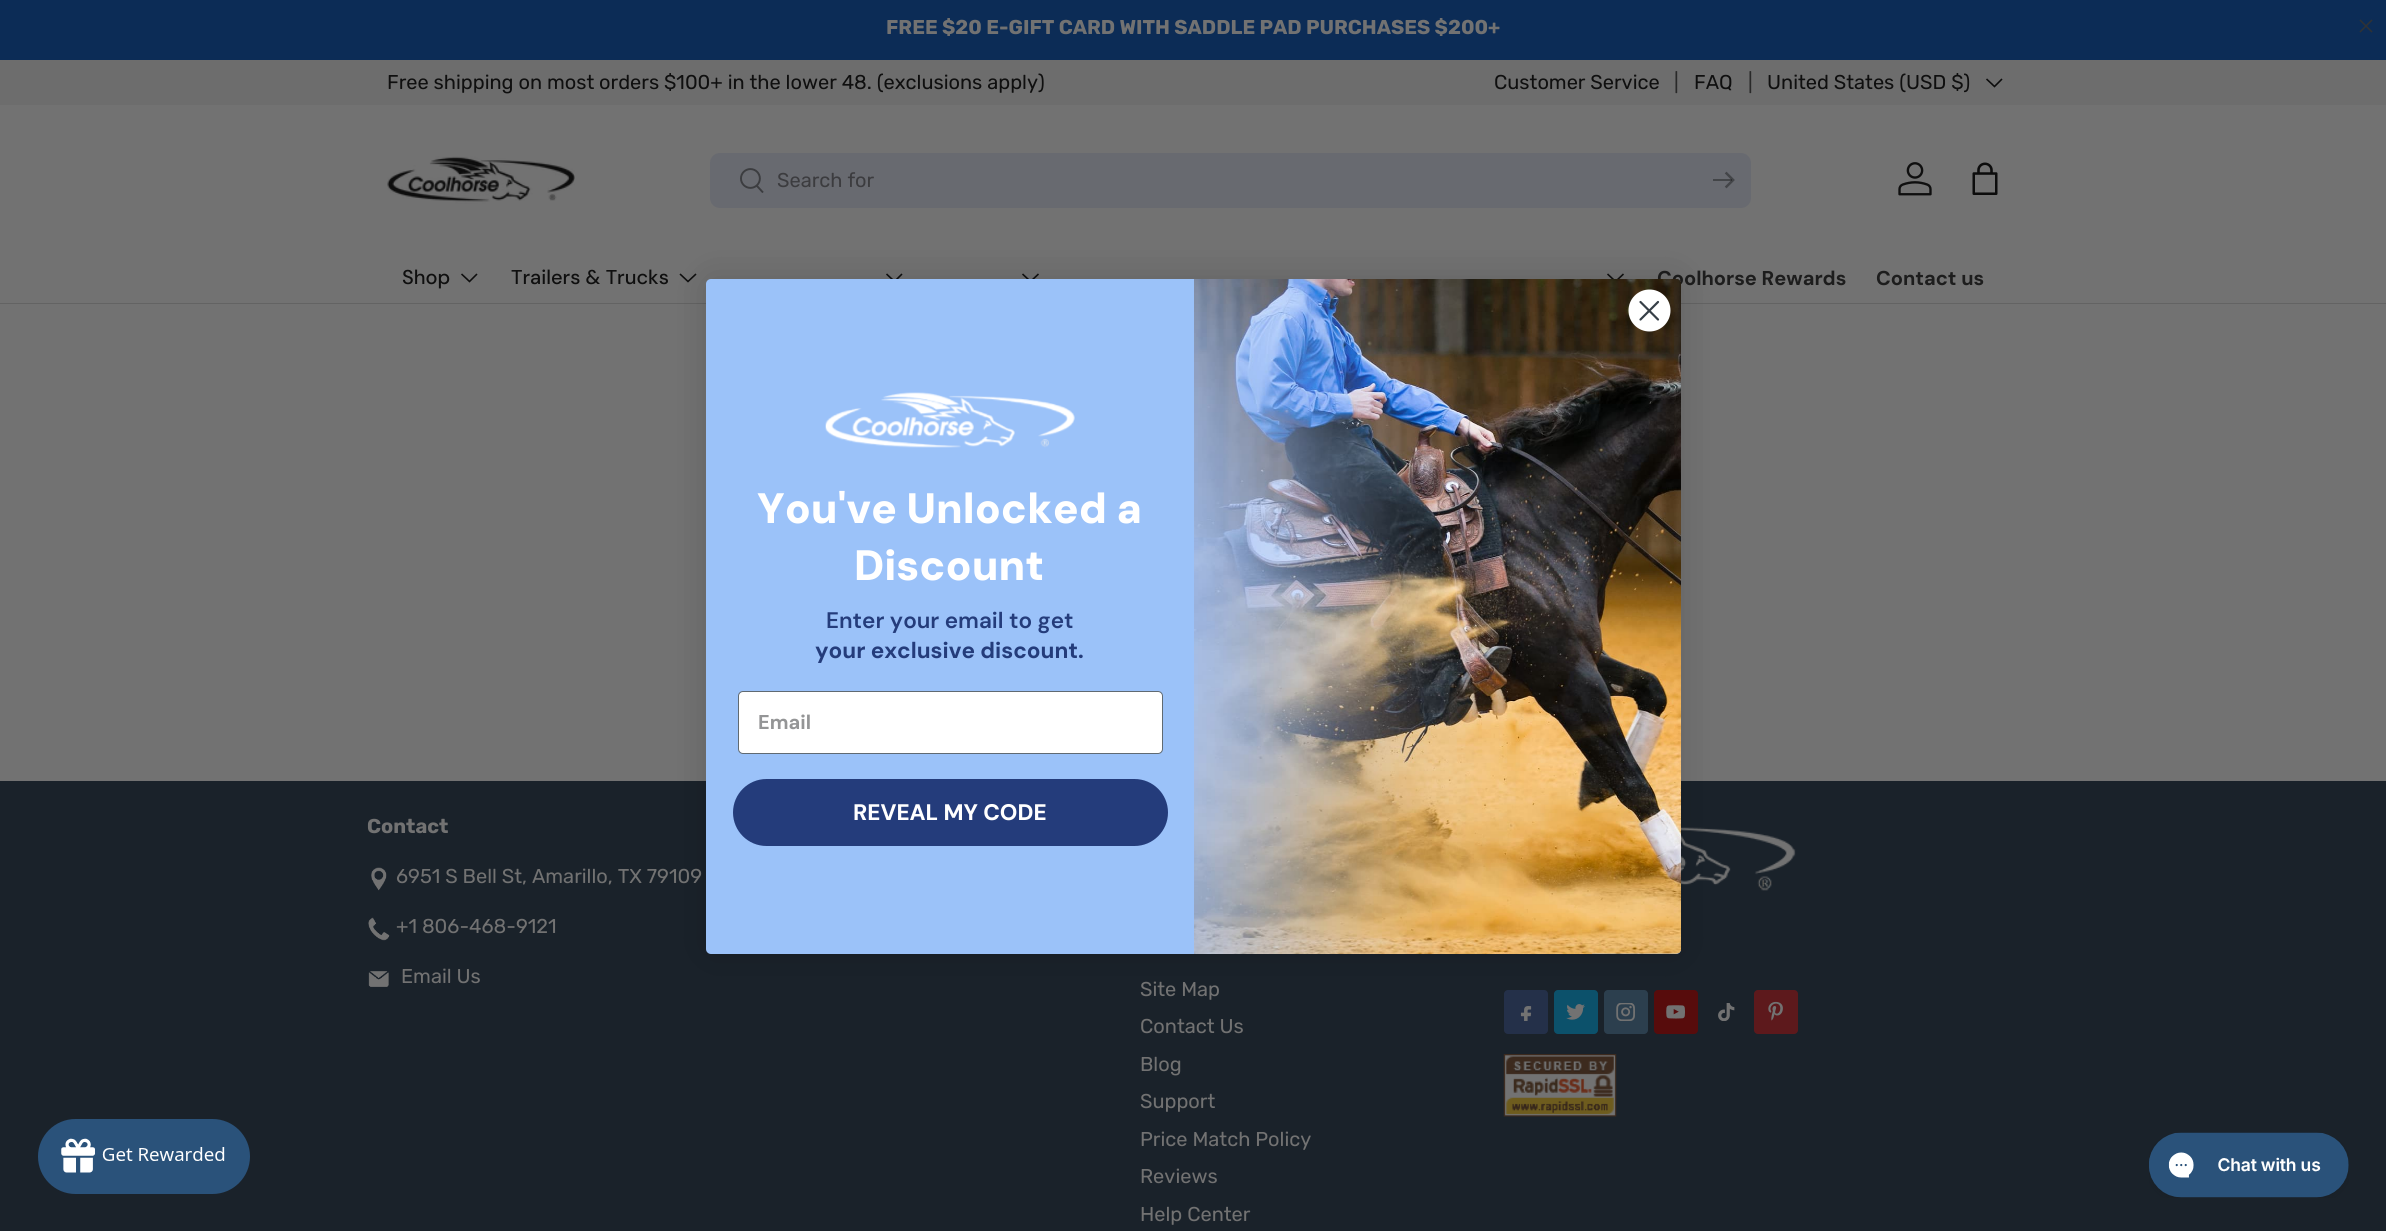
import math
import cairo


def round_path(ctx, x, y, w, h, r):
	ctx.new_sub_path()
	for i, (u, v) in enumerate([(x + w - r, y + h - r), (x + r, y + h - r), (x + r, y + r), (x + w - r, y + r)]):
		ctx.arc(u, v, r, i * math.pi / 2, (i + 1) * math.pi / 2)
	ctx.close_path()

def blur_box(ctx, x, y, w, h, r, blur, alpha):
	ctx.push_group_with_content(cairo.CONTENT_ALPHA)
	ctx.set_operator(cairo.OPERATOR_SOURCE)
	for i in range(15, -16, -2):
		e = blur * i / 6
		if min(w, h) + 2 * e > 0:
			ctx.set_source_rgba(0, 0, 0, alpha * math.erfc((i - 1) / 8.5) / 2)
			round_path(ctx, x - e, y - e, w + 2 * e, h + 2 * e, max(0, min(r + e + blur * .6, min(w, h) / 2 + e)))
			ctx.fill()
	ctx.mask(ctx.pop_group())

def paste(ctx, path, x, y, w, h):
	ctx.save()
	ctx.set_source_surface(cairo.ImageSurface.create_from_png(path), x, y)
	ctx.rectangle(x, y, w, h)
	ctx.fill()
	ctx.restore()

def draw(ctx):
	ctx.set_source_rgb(0.447, 0.447, 0.447)
	ctx.paint()
	ctx.set_source_rgb(0.047, 0.173, 0.337)
	ctx.rectangle(0, 0, 2386, 60)
	ctx.fill()
	ctx.select_font_face('Rubik', cairo.FONT_SLANT_NORMAL, cairo.FONT_WEIGHT_BOLD)
	ctx.set_font_size(20)
	ctx.set_source_rgb(0.447, 0.447, 0.447)
	ctx.move_to(886, 34)
	ctx.show_text('FREE $20 E-GIFT CARD WITH SADDLE PAD PURCHASES $200+')
	ctx.new_path()
	ctx.move_to(2360, 20)
	ctx.line_to(2372, 32)
	ctx.move_to(2372, 20)
	ctx.line_to(2360, 32)
	ctx.set_source_rgb(0.192, 0.196, 0.2)
	ctx.set_line_width(1.5)
	ctx.stroke()
	ctx.set_source_rgb(0.427, 0.427, 0.427)
	ctx.rectangle(0, 60, 2386, 45)
	ctx.fill()
	ctx.select_font_face('Rubik')
	ctx.set_source_rgb(0.059, 0.059, 0.059)
	ctx.move_to(387, 89)
	ctx.show_text('Free shipping on most orders $100+ in the lower 48. (exclusions apply)')
	ctx.move_to(1494, 89)
	ctx.show_text('Customer Service')
	ctx.set_source_rgb(0.161, 0.161, 0.161)
	ctx.move_to(1674, 89)
	ctx.show_text('|')
	ctx.set_source_rgb(0.059, 0.059, 0.059)
	ctx.move_to(1694, 89)
	ctx.show_text('FAQ')
	ctx.set_source_rgb(0.161, 0.161, 0.161)
	ctx.move_to(1748, 89)
	ctx.show_text('|')
	ctx.set_source_rgb(0.059, 0.059, 0.059)
	ctx.move_to(1767, 89)
	ctx.show_text('United States (USD $)')
	ctx.new_path()
	ctx.move_to(2002, 79)
	ctx.line_to(1994.5, 86.5)
	ctx.line_to(1986.5, 79)
	ctx.set_source_rgb(0.047, 0.047, 0.047)
	ctx.set_line_width(1.6)
	ctx.stroke()
	ctx.set_source_rgb(0.388, 0.388, 0.388)
	ctx.rectangle(0, 303, 2386, 1)
	ctx.fill()
	paste(ctx, 'media/1.png', 387, 156, 188, 48)
	ctx.set_source_rgb(0.408, 0.416, 0.439)
	round_path(ctx, 710, 153, 1041, 55, 10)
	ctx.fill()
	paste(ctx, 'media/2.png', 740, 168, 24, 25)
	ctx.set_source_rgb(0.235, 0.235, 0.247)
	ctx.move_to(777, 187)
	ctx.show_text('Search for')
	paste(ctx, 'media/3.png', 1713, 171, 22, 18)
	paste(ctx, 'media/4.png', 1898, 162, 34, 34)
	paste(ctx, 'media/5.png', 1972, 162, 26, 33)
	ctx.select_font_face('DM Sans Medium')
	ctx.set_source_rgb(0.059, 0.059, 0.059)
	ctx.move_to(402, 284)
	ctx.show_text('Shop')
	ctx.new_path()
	ctx.move_to(477, 274)
	ctx.line_to(469.5, 281.5)
	ctx.line_to(461.5, 274)
	ctx.stroke()
	ctx.move_to(511, 284)
	ctx.show_text('Trailers & Trucks')
	ctx.new_path()
	ctx.move_to(696, 274)
	ctx.line_to(688, 281.5)
	ctx.line_to(680, 274)
	ctx.stroke()
	ctx.new_path()
	ctx.move_to(902, 274)
	ctx.line_to(894.5, 281.5)
	ctx.line_to(886.5, 274)
	ctx.stroke()
	ctx.new_path()
	ctx.move_to(1038.5, 274)
	ctx.line_to(1030.5, 281.5)
	ctx.line_to(1022.5, 274)
	ctx.stroke()
	ctx.new_path()
	ctx.move_to(1623.5, 274)
	ctx.line_to(1615.5, 281.5)
	ctx.line_to(1607.5, 274)
	ctx.stroke()
	ctx.select_font_face('DM Sans', cairo.FONT_SLANT_NORMAL, cairo.FONT_WEIGHT_BOLD)
	ctx.set_source_rgb(0.114, 0.114, 0.114)
	ctx.move_to(1657, 285)
	ctx.show_text('Coolhorse Rewards')
	ctx.move_to(1876, 285)
	ctx.show_text('Contact us')
	ctx.set_source_rgb(0.102, 0.133, 0.165)
	ctx.rectangle(0, 781, 2386, 450)
	ctx.fill()
	paste(ctx, 'media/12.png', 1681, 827, 115, 64)
	ctx.set_source_rgb(0.141, 0.188, 0.286)
	round_path(ctx, 1504, 990, 44, 44, 4)
	ctx.fill()
	paste(ctx, 'media/13.png', 1520, 1006, 12, 15)
	ctx.set_source_rgb(0.047, 0.318, 0.42)
	round_path(ctx, 1554, 990, 44, 44, 4)
	ctx.fill()
	paste(ctx, 'media/14.png', 1566, 1004, 19, 16)
	ctx.set_source_rgb(0.173, 0.247, 0.306)
	round_path(ctx, 1604, 990, 44, 44, 4)
	ctx.fill()
	paste(ctx, 'media/15.png', 1616, 1003, 19, 18)
	ctx.set_source_rgb(0.341, 0.047, 0.047)
	round_path(ctx, 1654, 990, 44, 44, 4)
	ctx.fill()
	paste(ctx, 'media/16.png', 1666, 1005, 19, 14)
	paste(ctx, 'media/17.png', 1718, 1003, 17, 18)
	ctx.set_source_rgb(0, 0, 0)
	blur_box(ctx, 706, 279, 975, 675, 5, 19, 0.15)
	ctx.set_source_rgb(0.608, 0.761, 0.976)
	round_path(ctx, 706, 279, 975, 675, 5)
	ctx.fill()
	paste(ctx, 'media/7.png', 1194, 279, 487, 675)
	ctx.set_source_rgb(1, 1, 1)
	ctx.arc(1649.5, 310.5, 21, 0, 2 * math.pi)
	ctx.fill()
	ctx.new_path()
	ctx.move_to(1640.5, 302)
	ctx.line_to(1658, 319.5)
	ctx.move_to(1640.5, 319.5)
	ctx.line_to(1658, 302)
	ctx.close_path()
	ctx.set_source_rgb(0.216, 0.247, 0.278)
	ctx.set_line_width(2.2)
	ctx.set_line_cap(cairo.LINE_CAP_ROUND)
	ctx.set_line_join(cairo.LINE_JOIN_ROUND)
	ctx.stroke()
	paste(ctx, 'media/6.png', 825, 392, 250, 56)
	ctx.select_font_face('DM Sans Black')
	ctx.set_font_size(42.5)
	ctx.set_source_rgb(1, 1, 1)
	ctx.move_to(757, 523)
	ctx.show_text('You\'ve Unlocked a')
	ctx.move_to(854, 580)
	ctx.show_text('Discount')
	ctx.select_font_face('DM Sans SemiBold')
	ctx.set_font_size(22.5)
	ctx.set_source_rgb(0.141, 0.235, 0.482)
	ctx.move_to(826, 628)
	ctx.show_text('Enter your email to get')
	ctx.select_font_face('DM Sans', cairo.FONT_SLANT_NORMAL, cairo.FONT_WEIGHT_BOLD)
	ctx.move_to(815, 658)
	ctx.show_text('your exclusive discount.')
	ctx.set_source_rgb(1, 1, 1)
	round_path(ctx, 738.5, 691.5, 424, 62, 4.5)
	ctx.fill_preserve()
	ctx.set_source_rgb(0.376, 0.416, 0.447)
	ctx.set_line_width(1)
	ctx.set_line_cap(cairo.LINE_CAP_BUTT)
	ctx.set_line_join(cairo.LINE_JOIN_MITER)
	ctx.stroke()
	ctx.set_font_size(20)
	ctx.set_source_rgb(0.58, 0.584, 0.588)
	ctx.move_to(758, 729)
	ctx.show_text('Email')
	ctx.set_source_rgb(0.141, 0.235, 0.482)
	round_path(ctx, 733, 779, 435, 67, 33.5)
	ctx.fill()
	ctx.select_font_face('DM Sans ExtraBold')
	ctx.set_font_size(22.5)
	ctx.set_source_rgb(1, 1, 1)
	ctx.move_to(853, 820)
	ctx.show_text('REVEAL MY CODE')
	ctx.set_source_rgb(0.165, 0.322, 0.478)
	round_path(ctx, 38, 1119, 212, 75, 37.5)
	ctx.fill()
	paste(ctx, 'media/8.png', 61, 1138, 164, 35)
	ctx.select_font_face('Rubik', cairo.FONT_SLANT_NORMAL, cairo.FONT_WEIGHT_BOLD)
	ctx.set_font_size(20)
	ctx.set_source_rgb(0.447, 0.447, 0.447)
	ctx.move_to(367, 833)
	ctx.show_text('Contact')
	paste(ctx, 'media/9.png', 371, 867, 16, 24)
	ctx.select_font_face('Rubik')
	ctx.move_to(396, 883)
	ctx.show_text('6951 S Bell St, Amarillo, TX 79109')
	paste(ctx, 'media/10.png', 368, 917, 22, 24)
	ctx.move_to(396, 933)
	ctx.show_text('+1 806-468-9121')
	paste(ctx, 'media/11.png', 368, 971, 21, 16)
	for x, y, s in [
		(401, 983, 'Email Us'),
		(1140, 996, 'Site Map'),
		(1140, 1033, 'Contact Us'),
		(1140, 1071, 'Blog'),
		(1140, 1108, 'Support'),
		(1140, 1146, 'Price Match Policy'),
		(1140, 1183, 'Reviews'),
		(1140, 1221, 'Help Center'),
	]:
		ctx.move_to(x, y)
		ctx.show_text(s)
	ctx.set_source_rgb(0.365, 0.098, 0.11)
	round_path(ctx, 1754, 990, 44, 44, 4)
	ctx.fill()
	paste(ctx, 'media/18.png', 1768, 1001, 15, 20)
	paste(ctx, 'media/19.png', 1503, 1054, 114, 63)
	paste(ctx, 'media/20.png', 2149, 1132, 200, 66)


surface = cairo.ImageSurface(cairo.FORMAT_RGB24, 2386, 1231)
ctx = cairo.Context(surface)
options = cairo.FontOptions()
options.set_hint_metrics(cairo.HINT_METRICS_OFF)
options.set_hint_style(cairo.HINT_STYLE_NONE)
ctx.set_font_options(options)
ctx.set_miter_limit(4)
draw(ctx)
surface.write_to_png('image.png')
